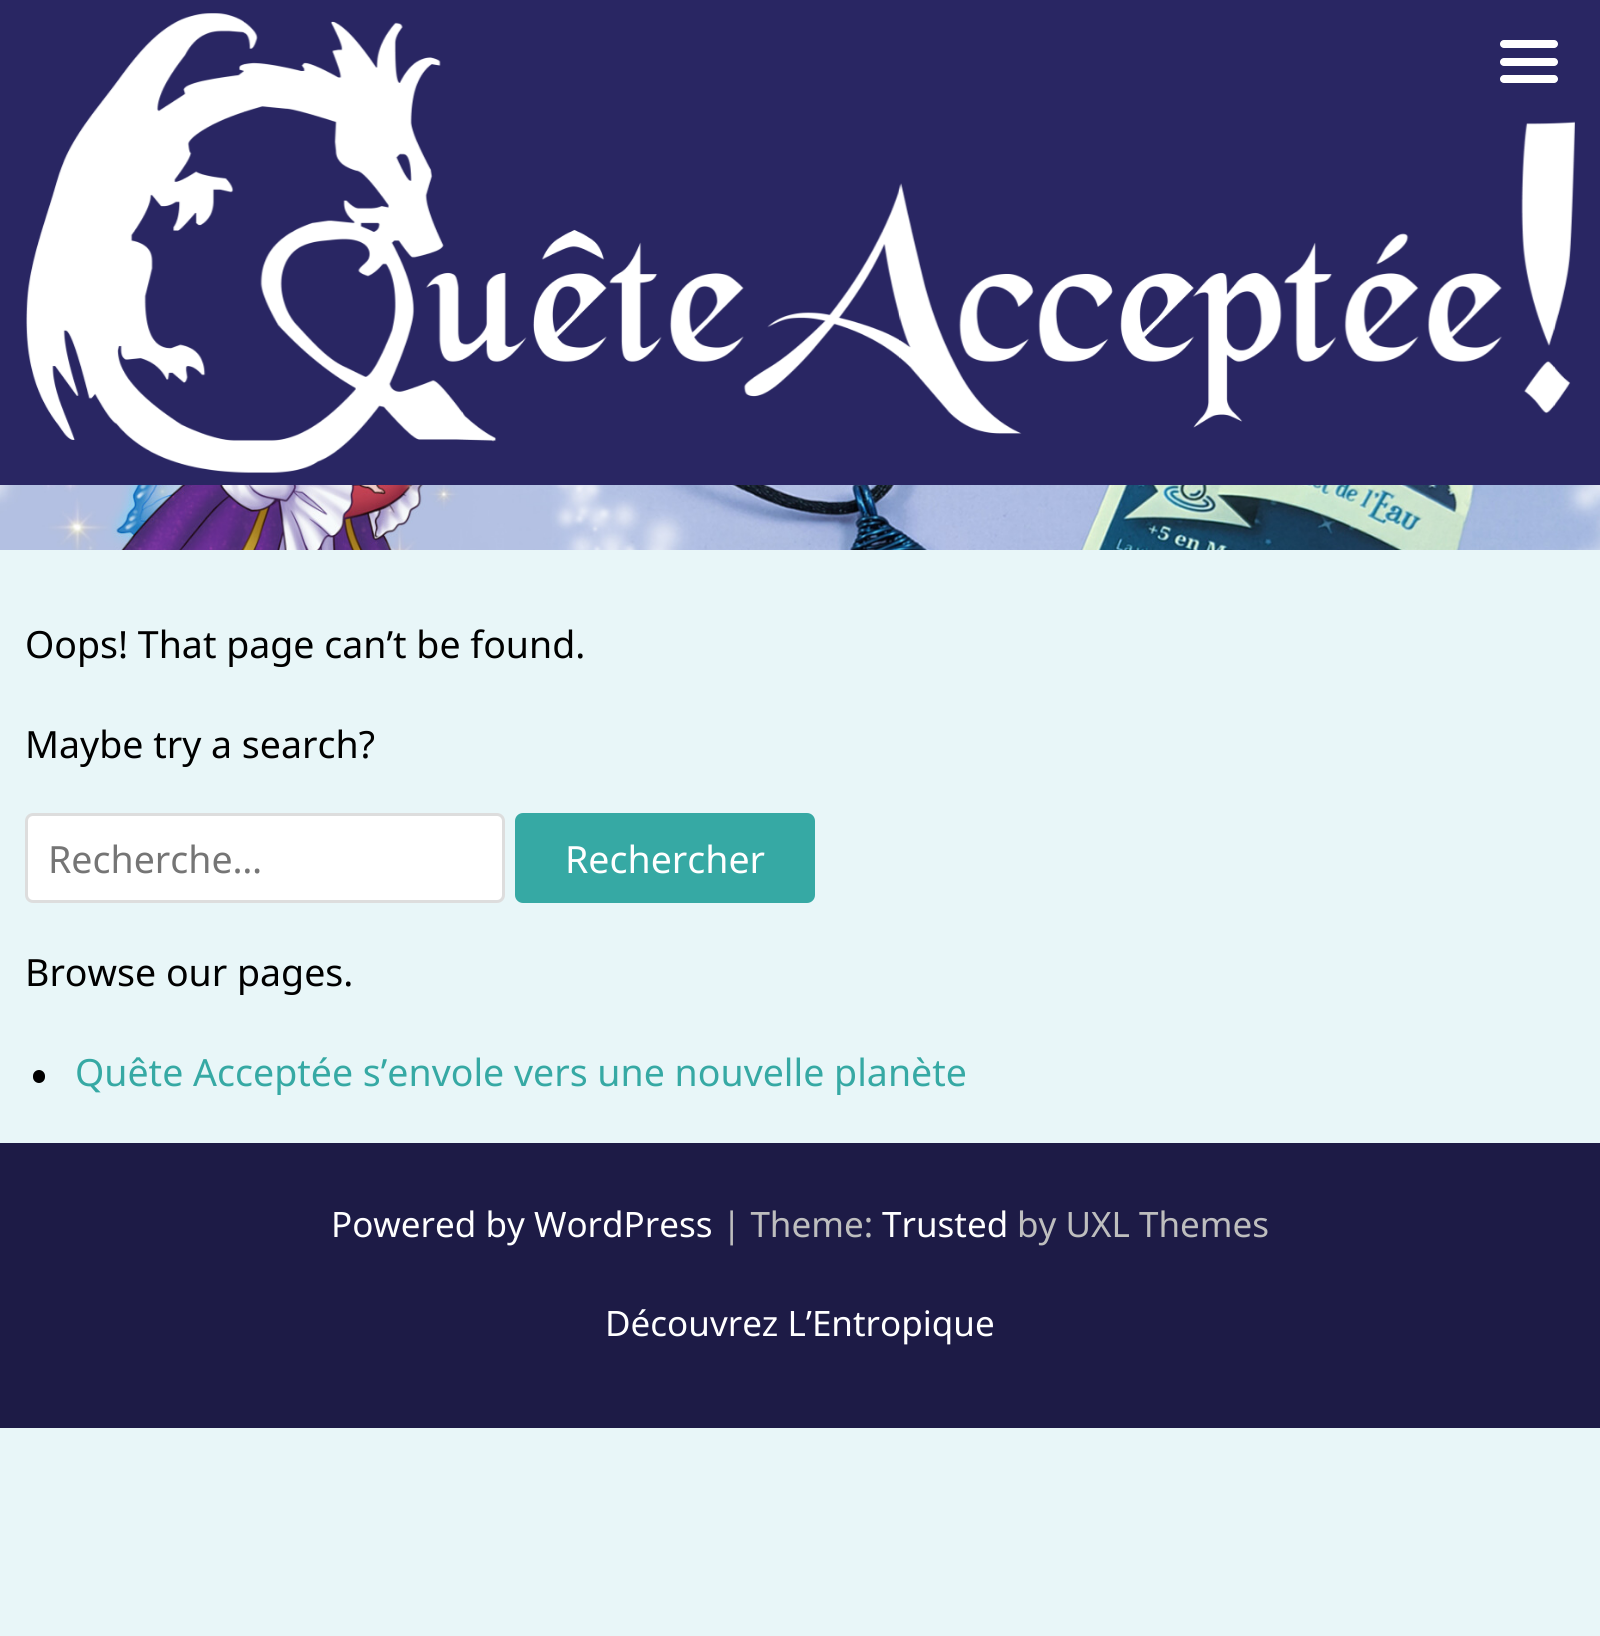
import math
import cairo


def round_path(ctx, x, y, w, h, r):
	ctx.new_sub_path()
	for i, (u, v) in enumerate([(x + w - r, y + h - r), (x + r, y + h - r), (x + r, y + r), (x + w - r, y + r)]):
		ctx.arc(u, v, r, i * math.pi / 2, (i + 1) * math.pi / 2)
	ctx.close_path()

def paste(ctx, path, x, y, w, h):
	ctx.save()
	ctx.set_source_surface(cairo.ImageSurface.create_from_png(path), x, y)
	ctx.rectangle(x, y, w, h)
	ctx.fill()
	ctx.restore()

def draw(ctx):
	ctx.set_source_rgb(0.91, 0.961, 0.969)
	ctx.paint()
	ctx.set_source_rgb(0.161, 0.149, 0.388)
	ctx.rectangle(0, 0, 1600, 485)
	ctx.fill()
	paste(ctx, 'media/1.png', 26, 13, 1549, 460)
	ctx.set_source_rgb(1, 1, 1)
	round_path(ctx, 1500, 58, 58, 8, 4)
	ctx.fill()
	round_path(ctx, 1500, 40, 58, 8, 4)
	ctx.fill()
	round_path(ctx, 1500, 75, 58, 8, 4)
	ctx.fill()
	paste(ctx, 'media/2.png', 0, 485, 1600, 65)
	ctx.select_font_face('Noto Sans')
	ctx.set_font_size(37.5)
	ctx.set_source_rgb(0, 0, 0)
	ctx.move_to(25, 658)
	ctx.show_text('Oops! That page can’t be found.')
	ctx.move_to(25, 758)
	ctx.show_text('Maybe try a search?')
	ctx.set_source_rgb(1, 1, 1)
	round_path(ctx, 26.5, 814.5, 477, 87, 6.5)
	ctx.fill_preserve()
	ctx.set_source_rgb(0.867, 0.867, 0.867)
	ctx.set_line_width(3)
	ctx.stroke()
	ctx.set_source_rgb(0.459, 0.459, 0.459)
	ctx.move_to(48, 873)
	ctx.show_text('Recherche…')
	ctx.set_source_rgb(0.212, 0.663, 0.643)
	round_path(ctx, 515, 813, 300, 90, 8)
	ctx.fill()
	ctx.set_source_rgb(1, 1, 1)
	ctx.move_to(565, 873)
	ctx.show_text('Rechercher')
	ctx.set_source_rgb(0, 0, 0)
	ctx.move_to(25, 986)
	ctx.show_text('Browse our pages.')
	round_path(ctx, 33, 1070, 12, 13, 6)
	ctx.fill()
	ctx.set_source_rgb(0.212, 0.663, 0.643)
	ctx.move_to(75, 1086)
	ctx.show_text('Quête Acceptée s’envole vers une nouvelle planète')
	ctx.set_source_rgb(0.114, 0.106, 0.275)
	ctx.rectangle(0, 1143, 1600, 285)
	ctx.fill()
	ctx.set_font_size(35)
	ctx.set_source_rgb(1, 1, 1)
	ctx.move_to(331, 1237)
	ctx.show_text('Powered by WordPress')
	ctx.set_source_rgb(0.745, 0.745, 0.745)
	ctx.move_to(722, 1237)
	ctx.show_text('| Theme:')
	ctx.set_source_rgb(1, 1, 1)
	ctx.move_to(882, 1237)
	ctx.show_text('Trusted')
	ctx.set_source_rgb(0.745, 0.745, 0.745)
	ctx.move_to(1017, 1237)
	ctx.show_text('by UXL Themes')
	ctx.set_source_rgb(1, 1, 1)
	ctx.move_to(605, 1336)
	ctx.show_text('Découvrez L’Entropique')


surface = cairo.ImageSurface(cairo.FORMAT_RGB24, 1600, 1636)
ctx = cairo.Context(surface)
options = cairo.FontOptions()
options.set_hint_metrics(cairo.HINT_METRICS_OFF)
options.set_hint_style(cairo.HINT_STYLE_NONE)
ctx.set_font_options(options)
ctx.set_miter_limit(4)
draw(ctx)
surface.write_to_png('image.png')
